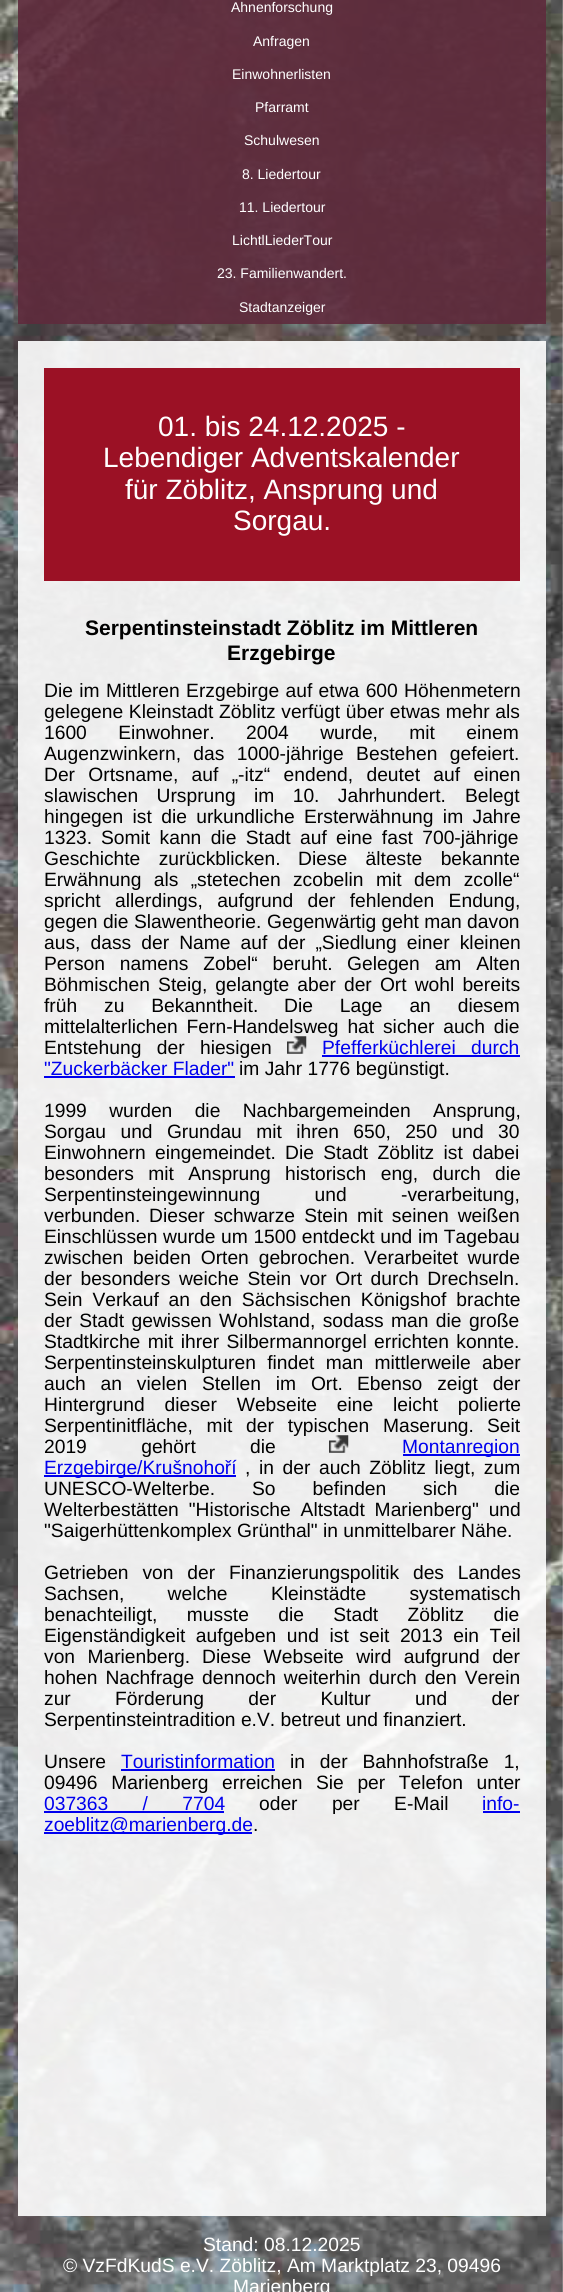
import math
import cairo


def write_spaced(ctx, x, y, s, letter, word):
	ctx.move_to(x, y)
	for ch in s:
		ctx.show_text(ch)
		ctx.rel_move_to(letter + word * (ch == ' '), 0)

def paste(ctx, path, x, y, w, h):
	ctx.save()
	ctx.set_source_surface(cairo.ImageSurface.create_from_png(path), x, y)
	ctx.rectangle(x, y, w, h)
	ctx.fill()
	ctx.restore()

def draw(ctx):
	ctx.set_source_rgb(1, 1, 1)
	ctx.paint()
	paste(ctx, 'media/1.png', 0, 0, 563, 2292)
	ctx.set_source_rgba(0.369, 0.165, 0.235, 0.9)
	ctx.rectangle(18, 0, 528, 324)
	ctx.fill()
	ctx.select_font_face('Liberation Sans')
	ctx.set_font_size(14)
	ctx.set_source_rgb(1, 1, 1)
	for x, y, s in [
		(231, 12, 'Ahnenforschung'),
		(253, 46, 'Anfragen'),
		(232, 79, 'Einwohnerlisten'),
		(255, 112, 'Pfarramt'),
		(244, 145, 'Schulwesen'),
		(242, 179, '8. Liedertour'),
		(239, 212, '11. Liedertour'),
		(232, 245, 'LichtlLiederTour'),
		(217, 278, '23. Familienwandert.'),
		(239, 312, 'Stadtanzeiger'),
	]:
		ctx.move_to(x, y)
		ctx.show_text(s)
	ctx.set_source_rgba(1, 1, 1, 0.9)
	ctx.rectangle(18, 341, 528, 1875)
	ctx.fill()
	ctx.set_source_rgb(0.608, 0.067, 0.145)
	ctx.rectangle(44, 368, 476, 213)
	ctx.fill()
	ctx.set_font_size(28)
	ctx.set_source_rgb(1, 1, 1)
	for x, y, s in [
		(158, 436, '01. bis 24.12.2025 -'),
		(103, 467, 'Lebendiger Adventskalender'),
		(125, 499, 'für Zöblitz, Ansprung und'),
		(233, 530, 'Sorgau.'),
	]:
		ctx.move_to(x, y)
		ctx.show_text(s)
	ctx.select_font_face('Liberation Sans', cairo.FONT_SLANT_NORMAL, cairo.FONT_WEIGHT_BOLD)
	ctx.set_font_size(21)
	ctx.set_source_rgb(0, 0, 0)
	ctx.move_to(85, 635)
	ctx.show_text('Serpentinsteinstadt Zöblitz im Mittleren')
	ctx.move_to(227, 660)
	ctx.show_text('Erzgebirge')
	ctx.select_font_face('Liberation Sans')
	ctx.set_font_size(19.25)
	write_spaced(ctx, 44, 697, 'Die im Mittleren Erzgebirge auf etwa 600 Höhenmetern', 0, 1)
	write_spaced(ctx, 44, 718, 'gelegene Kleinstadt Zöblitz verfügt über etwas mehr als', 0, 0.25)
	write_spaced(ctx, 44, 739, '1600 Einwohner.', 0, 26)
	write_spaced(ctx, 246, 739, '2004 wurde, mit einem', 0, 26)
	write_spaced(ctx, 44, 760, 'Augenzwinkern, das 1000-jährige Bestehen gefeiert.', 0, 7)
	write_spaced(ctx, 44, 781, 'Der Ortsname, auf „-itz“ endend, deutet auf einen', 0, 8)
	write_spaced(ctx, 44, 802, 'slawischen Ursprung im 10. Jahrhundert.', 0, 13)
	ctx.move_to(465, 802)
	ctx.show_text('Belegt')
	write_spaced(ctx, 44, 823, 'hingegen ist die urkundliche Ersterwähnung im Jahre', 0, 4)
	ctx.move_to(44, 844)
	ctx.show_text('1323.')
	write_spaced(ctx, 101, 844, 'Somit kann die Stadt auf eine fast 700-jährige', 0, 4)
	write_spaced(ctx, 44, 865, 'Geschichte zurückblicken.', 0, 13)
	write_spaced(ctx, 298, 865, 'Diese älteste bekannte', 0, 13)
	write_spaced(ctx, 44, 886, 'Erwähnung als „stetechen zcobelin mit dem zcolle“', 0, 7)
	write_spaced(ctx, 44, 907, 'spricht allerdings, aufgrund der fehlenden Endung,', 0, 9)
	ctx.move_to(44, 928)
	ctx.show_text('gegen die Slawentheorie.')
	ctx.move_to(267, 928)
	ctx.show_text('Gegenwärtig geht man davon')
	write_spaced(ctx, 44, 949, 'aus, dass der Name auf der „Siedlung einer kleinen', 0, 4.75)
	write_spaced(ctx, 44, 970, 'Person namens Zobel“ beruht.', 0, 9.5)
	write_spaced(ctx, 347, 970, 'Gelegen am Alten', 0, 9.5)
	write_spaced(ctx, 44, 991, 'Böhmischen Steig, gelangte aber der Ort wohl bereits', 0, 2.75)
	write_spaced(ctx, 44, 1012, 'früh zu Bekanntheit.', 0, 21.5)
	write_spaced(ctx, 284, 1012, 'Die Lage an diesem', 0, 21.5)
	write_spaced(ctx, 44, 1033, 'mittelalterlichen Fern-Handelsweg hat sicher auch die', 0, 3.5)
	write_spaced(ctx, 44, 1054, 'Entstehung der hiesigen', 0, 10)
	paste(ctx, 'media/2.png', 287, 1036, 20, 18)
	ctx.set_source_rgb(0, 0, 0.933)
	write_spaced(ctx, 322, 1054, 'Pfefferküchlerei durch', 0, 10)
	ctx.rectangle(322, 1055, 198, 2)
	ctx.fill()
	ctx.move_to(44, 1075)
	ctx.show_text('"Zuckerbäcker Flader"')
	ctx.rectangle(44, 1076, 191, 2)
	ctx.fill()
	ctx.set_source_rgb(0, 0, 0)
	ctx.move_to(239, 1075)
	ctx.show_text('im Jahr 1776 begünstigt.')
	write_spaced(ctx, 44, 1117, '1999 wurden die Nachbargemeinden Ansprung,', 0, 17)
	write_spaced(ctx, 44, 1138, 'Sorgau und Grundau mit ihren 650, 250 und 30', 0, 9)
	write_spaced(ctx, 44, 1159, 'Einwohnern eingemeindet.', 0, 4)
	write_spaced(ctx, 285, 1159, 'Die Stadt Zöblitz ist dabei', 0, 4)
	write_spaced(ctx, 44, 1180, 'besonders mit Ansprung historisch eng, durch die', 0, 9)
	write_spaced(ctx, 44, 1201, 'Serpentinsteingewinnung und -verarbeitung,', 0, 49)
	ctx.move_to(44, 1222)
	ctx.show_text('verbunden.')
	write_spaced(ctx, 149, 1222, 'Dieser schwarze Stein mit seinen weißen', 0, 3.75)
	write_spaced(ctx, 44, 1243, 'Einschlüssen wurde um 1500 entdeckt und im Tagebau', 0, 0.25)
	write_spaced(ctx, 44, 1264, 'zwischen beiden Orten gebrochen.', 0, 4.5)
	write_spaced(ctx, 364, 1264, 'Verarbeitet wurde', 0, 4)
	write_spaced(ctx, 44, 1285, 'der besonders weiche Stein vor Ort durch Drechseln.', 0, 3.25)
	write_spaced(ctx, 44, 1306, 'Sein Verkauf an den Sächsischen Königshof brachte', 0, 4.5)
	write_spaced(ctx, 44, 1327, 'der Stadt gewissen Wohlstand, sodass man die große', 0, 2)
	write_spaced(ctx, 44, 1348, 'Stadtkirche mit ihrer Silbermannorgel errichten konnte.', 0, 2)
	write_spaced(ctx, 44, 1369, 'Serpentinsteinskulpturen findet man mittlerweile aber', 0, 6)
	write_spaced(ctx, 44, 1390, 'auch an vielen Stellen im Ort.', 0, 9.5)
	write_spaced(ctx, 357, 1390, 'Ebenso zeigt der', 0, 9.5)
	write_spaced(ctx, 44, 1411, 'Hintergrund dieser Webseite eine leicht polierte', 0, 14.5)
	write_spaced(ctx, 44, 1432, 'Serpentinitfläche, mit der typischen Maserung.', 0, 8.5)
	ctx.move_to(487, 1432)
	ctx.show_text('Seit')
	write_spaced(ctx, 44, 1453, '2019 gehört die', 0, 49)
	paste(ctx, 'media/3.png', 329, 1435, 20, 18)
	ctx.set_source_rgb(0, 0, 0.933)
	ctx.rectangle(403, 1454, 117, 2)
	ctx.fill()
	ctx.move_to(402, 1453)
	ctx.show_text('Montanregion')
	ctx.rectangle(44, 1475, 192, 2)
	ctx.fill()
	ctx.move_to(44, 1474)
	ctx.show_text('Erzgebirge/Krušnohoří')
	ctx.set_source_rgb(0, 0, 0)
	write_spaced(ctx, 245, 1474, ', in der auch Zöblitz liegt, zum', 0, 3.25)
	ctx.move_to(44, 1495)
	ctx.show_text('UNESCO-Welterbe.')
	write_spaced(ctx, 252, 1495, 'So befinden sich die', 0, 31.5)
	write_spaced(ctx, 44, 1516, 'Welterbestätten "Historische Altstadt Marienberg" und', 0, 4.5)
	ctx.move_to(44, 1537)
	ctx.show_text('"Saigerhüttenkomplex Grünthal" in unmittelbarer Nähe.')
	write_spaced(ctx, 44, 1579, 'Getrieben von der Finanzierungspolitik des Landes', 0, 8.5)
	write_spaced(ctx, 44, 1600, 'Sachsen, welche Kleinstädte systematisch', 0, 38)
	write_spaced(ctx, 44, 1621, 'benachteiligt, musste die Stadt Zöblitz die', 0, 24)
	write_spaced(ctx, 44, 1642, 'Eigenständigkeit aufgeben und ist seit 2013 ein Teil', 0, 5.25)
	write_spaced(ctx, 44, 1663, 'von Marienberg.', 0, 7)
	write_spaced(ctx, 202, 1663, 'Diese Webseite wird aufgrund der', 0, 7)
	write_spaced(ctx, 44, 1684, 'hohen Nachfrage dennoch weiterhin durch den Verein', 0, 2.5)
	write_spaced(ctx, 44, 1705, 'zur Förderung der Kultur und der', 0, 39)
	ctx.move_to(44, 1726)
	ctx.show_text('Serpentinsteintradition e.V. betreut und finanziert.')
	ctx.move_to(44, 1768)
	ctx.show_text('Unsere')
	ctx.set_source_rgb(0, 0, 0.933)
	ctx.move_to(121, 1768)
	ctx.show_text('Touristinformation')
	ctx.rectangle(121, 1769, 154, 2)
	ctx.fill()
	ctx.set_source_rgb(0, 0, 0)
	write_spaced(ctx, 290, 1768, 'in der Bahnhofstraße 1,', 0, 9.5)
	write_spaced(ctx, 44, 1789, '09496 Marienberg erreichen Sie per Telefon unter', 0, 8.25)
	ctx.set_source_rgb(0, 0, 0.933)
	write_spaced(ctx, 44, 1810, '037363 / 7704', 0, 29)
	ctx.rectangle(44, 1811, 180, 2)
	ctx.fill()
	ctx.set_source_rgb(0, 0, 0)
	write_spaced(ctx, 259, 1810, 'oder per E-Mail', 0, 29)
	ctx.set_source_rgb(0, 0, 0.933)
	ctx.move_to(482, 1810)
	ctx.show_text('info-')
	ctx.rectangle(483, 1811, 37, 2)
	ctx.fill()
	ctx.rectangle(44, 1832, 208, 2)
	ctx.fill()
	ctx.move_to(44, 1831)
	ctx.show_text('zoeblitz@marienberg.de')
	ctx.set_source_rgb(0, 0, 0)
	ctx.move_to(253, 1831)
	ctx.show_text('.')
	ctx.set_source_rgb(1, 1, 1)
	for x, y, s in [
		(203, 2251, 'Stand: 08.12.2025'),
		(63, 2272, '© VzFdKudS e.V. Zöblitz, Am Marktplatz 23, 09496'),
		(233, 2293, 'Marienberg'),
	]:
		ctx.move_to(x, y)
		ctx.show_text(s)


surface = cairo.ImageSurface(cairo.FORMAT_RGB24, 563, 2292)
ctx = cairo.Context(surface)
options = cairo.FontOptions()
options.set_hint_metrics(cairo.HINT_METRICS_OFF)
options.set_hint_style(cairo.HINT_STYLE_NONE)
ctx.set_font_options(options)
ctx.set_miter_limit(4)
draw(ctx)
surface.write_to_png('image.png')
